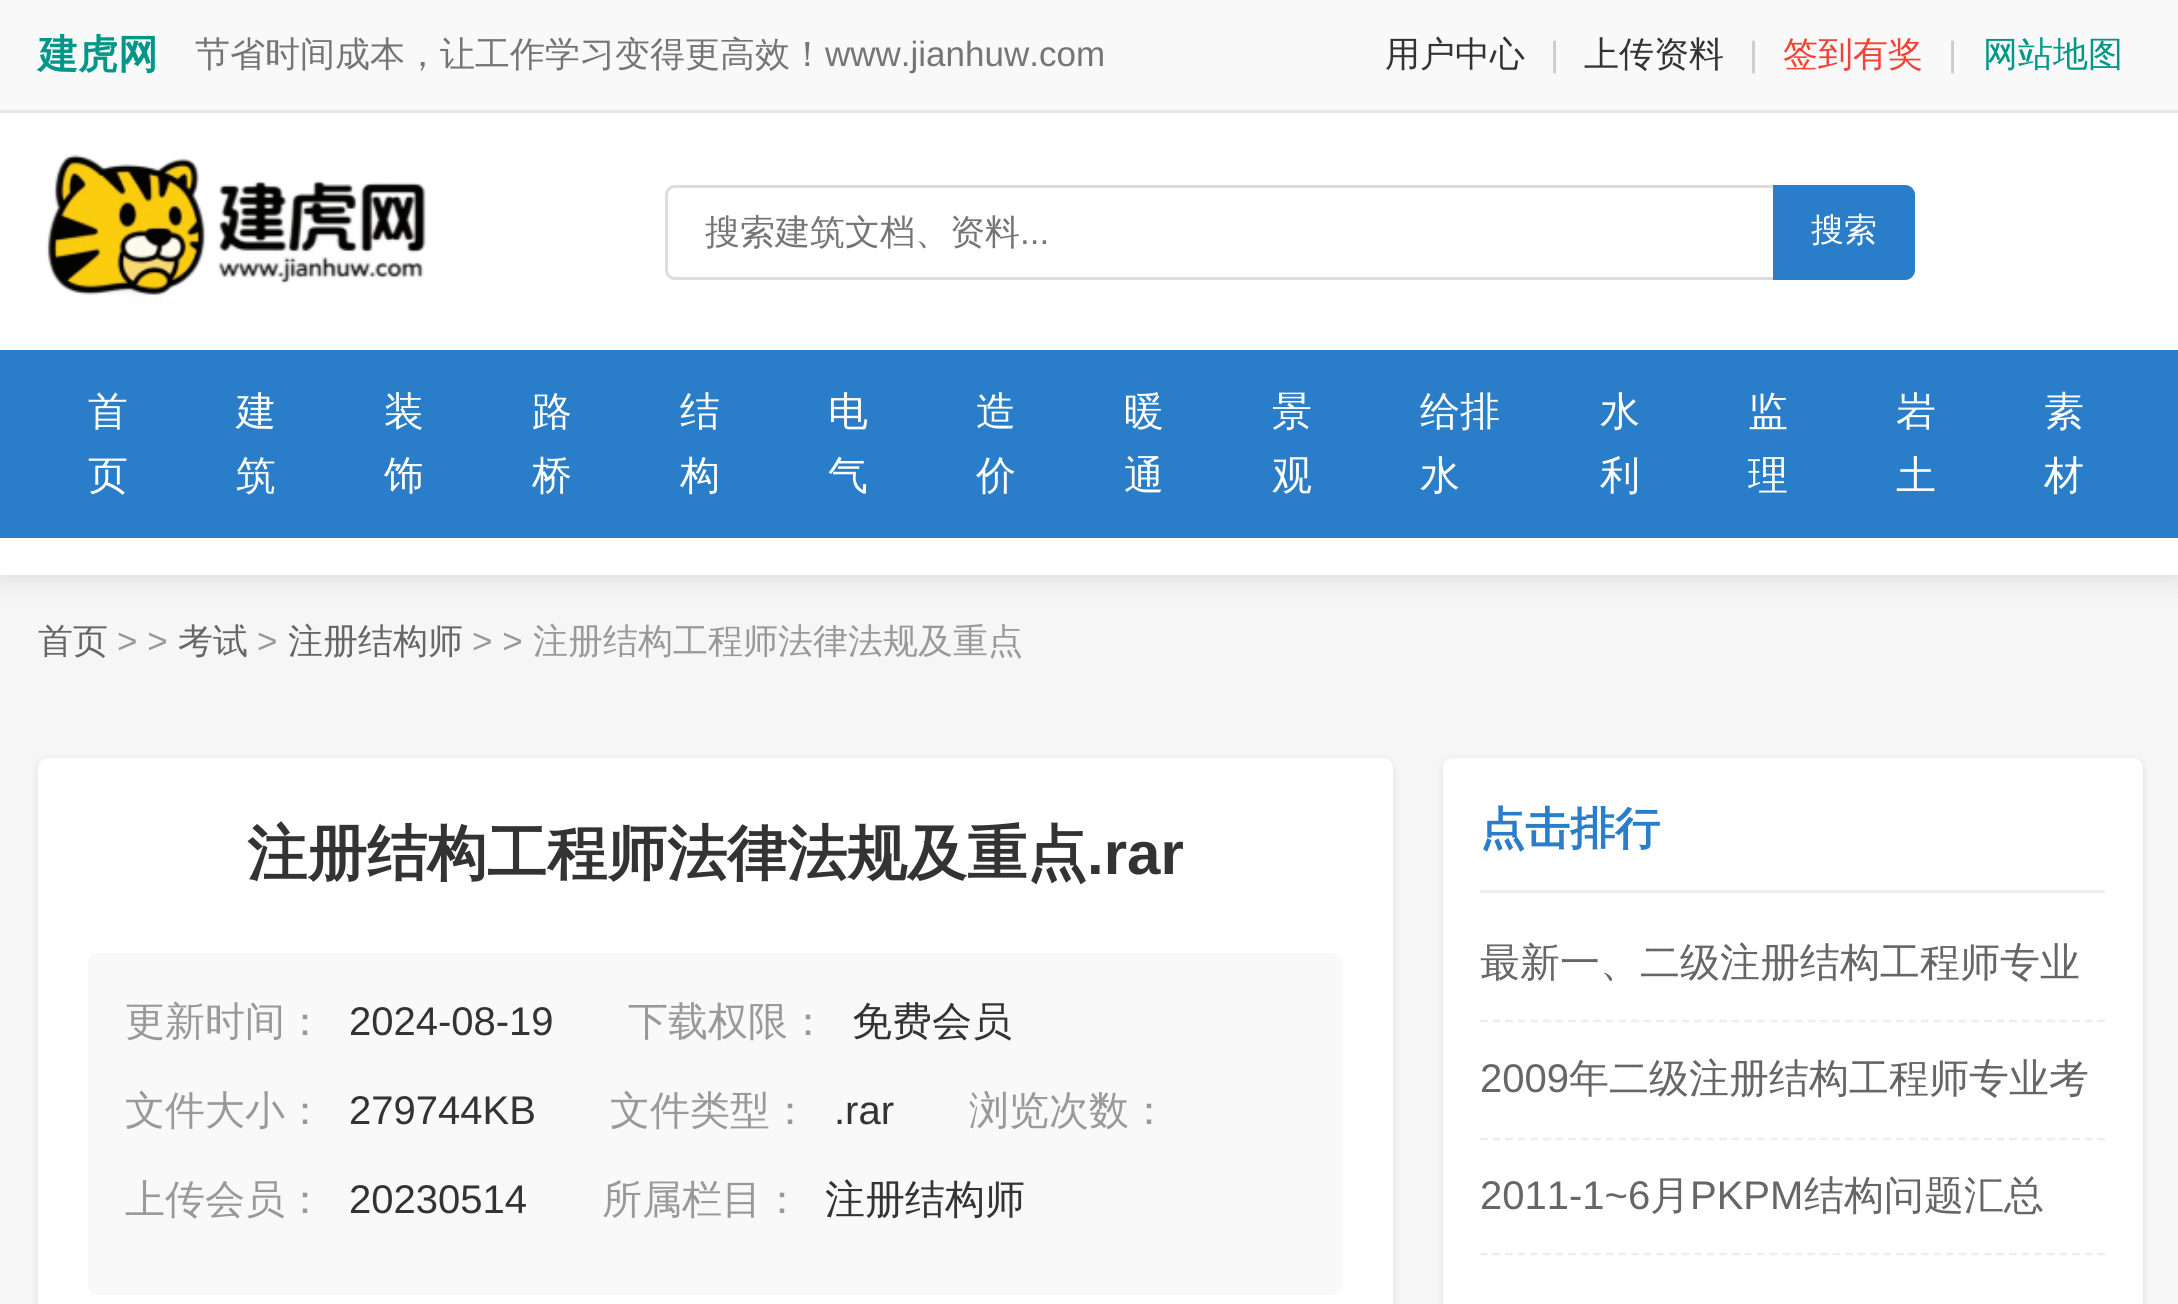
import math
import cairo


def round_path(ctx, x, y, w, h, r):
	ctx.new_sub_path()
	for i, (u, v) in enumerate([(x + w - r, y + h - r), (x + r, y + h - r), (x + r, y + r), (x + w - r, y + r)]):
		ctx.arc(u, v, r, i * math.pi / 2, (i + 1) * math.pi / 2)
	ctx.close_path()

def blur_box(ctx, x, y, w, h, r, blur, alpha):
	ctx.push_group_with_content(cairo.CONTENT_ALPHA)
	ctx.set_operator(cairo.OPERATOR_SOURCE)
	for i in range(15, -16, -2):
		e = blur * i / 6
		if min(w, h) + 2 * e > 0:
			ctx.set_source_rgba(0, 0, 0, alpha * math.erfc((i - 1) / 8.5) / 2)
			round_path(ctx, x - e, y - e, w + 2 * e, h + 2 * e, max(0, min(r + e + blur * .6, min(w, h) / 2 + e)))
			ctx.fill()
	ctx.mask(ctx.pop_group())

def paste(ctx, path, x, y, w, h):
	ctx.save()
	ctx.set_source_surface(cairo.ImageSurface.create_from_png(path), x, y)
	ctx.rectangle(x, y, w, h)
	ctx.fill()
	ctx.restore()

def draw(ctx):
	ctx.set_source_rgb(0.961, 0.961, 0.961)
	ctx.paint()
	ctx.set_source_rgb(0, 0, 0)
	blur_box(ctx, 0, 118, 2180, 462, 0, 12.5, 0.1)
	ctx.set_source_rgb(0.973, 0.973, 0.973)
	ctx.rectangle(0, 0, 2178, 110)
	ctx.fill()
	ctx.set_source_rgb(0.906, 0.906, 0.906)
	ctx.rectangle(0, 110, 2178, 3)
	ctx.fill()
	ctx.select_font_face('WenQuanYi Zen Hei', cairo.FONT_SLANT_NORMAL, cairo.FONT_WEIGHT_BOLD)
	ctx.set_font_size(40)
	ctx.set_source_rgb(0, 0.588, 0.533)
	ctx.move_to(38, 68)
	ctx.show_text('建虎网')
	ctx.select_font_face('WenQuanYi Zen Hei Medium')
	ctx.set_font_size(35)
	ctx.set_source_rgb(0.459, 0.459, 0.459)
	ctx.move_to(195, 66)
	ctx.show_text('节省时间成本，让工作学习变得更高效！')
	ctx.select_font_face('Liberation Sans')
	ctx.move_to(825, 66)
	ctx.show_text('www.jianhuw.com')
	ctx.select_font_face('WenQuanYi Zen Hei Medium')
	ctx.set_source_rgb(0.2, 0.2, 0.2)
	ctx.move_to(1385, 66)
	ctx.show_text('用户中心')
	ctx.select_font_face('Liberation Sans')
	ctx.set_source_rgb(0.8, 0.8, 0.8)
	ctx.move_to(1550, 66)
	ctx.show_text('|')
	ctx.select_font_face('WenQuanYi Zen Hei Medium')
	ctx.set_source_rgb(0.2, 0.2, 0.2)
	ctx.move_to(1584, 66)
	ctx.show_text('上传资料')
	ctx.select_font_face('Liberation Sans')
	ctx.set_source_rgb(0.8, 0.8, 0.8)
	ctx.move_to(1749, 66)
	ctx.show_text('|')
	ctx.select_font_face('WenQuanYi Zen Hei Medium')
	ctx.set_source_rgb(0.957, 0.263, 0.212)
	ctx.move_to(1783, 66)
	ctx.show_text('签到有奖')
	ctx.select_font_face('Liberation Sans')
	ctx.set_source_rgb(0.8, 0.8, 0.8)
	ctx.move_to(1948, 66)
	ctx.show_text('|')
	ctx.select_font_face('WenQuanYi Zen Hei Medium')
	ctx.set_source_rgb(0, 0.588, 0.533)
	ctx.move_to(1983, 66)
	ctx.show_text('网站地图')
	ctx.set_source_rgb(1, 1, 1)
	ctx.rectangle(0, 113, 2178, 462)
	ctx.fill()
	paste(ctx, 'media/1.png', 46, 154, 381, 151)
	round_path(ctx, 666.5, 186.5, 1247, 92, 8.5)
	ctx.set_source_rgb(0.867, 0.867, 0.867)
	ctx.set_line_width(3)
	ctx.stroke()
	ctx.set_source_rgb(0.459, 0.459, 0.459)
	ctx.move_to(705, 244)
	ctx.show_text('搜索建筑文档、资料')
	ctx.select_font_face('Liberation Sans')
	ctx.move_to(1020, 244)
	ctx.show_text('...')
	ctx.set_source_rgb(0.165, 0.49, 0.788)
	ctx.new_path()
	ctx.move_to(1773, 185)
	ctx.line_to(1905, 185)
	ctx.curve_to(1910.5, 185, 1915, 189.5, 1915, 195)
	ctx.line_to(1915, 270)
	ctx.curve_to(1915, 275.5, 1910.5, 280, 1905, 280)
	ctx.line_to(1773, 280)
	ctx.close_path()
	ctx.fill()
	ctx.select_font_face('WenQuanYi Zen Hei Medium')
	ctx.set_font_size(33)
	ctx.set_source_rgb(1, 1, 1)
	ctx.move_to(1811, 241)
	ctx.show_text('搜索')
	ctx.set_source_rgb(0.165, 0.49, 0.788)
	ctx.rectangle(0, 350, 2178, 188)
	ctx.fill()
	ctx.set_font_size(40)
	ctx.set_source_rgb(1, 1, 1)
	for x, y, s in [
		(88, 425, '首'),
		(88, 489, '页'),
		(236, 425, '建'),
		(236, 489, '筑'),
		(384, 425, '装'),
		(384, 489, '饰'),
		(532, 425, '路'),
		(532, 489, '桥'),
		(680, 425, '结'),
		(680, 489, '构'),
		(828, 425, '电'),
		(828, 489, '气'),
		(976, 425, '造'),
		(976, 489, '价'),
		(1124, 425, '暖'),
		(1124, 489, '通'),
		(1272, 425, '景'),
		(1272, 489, '观'),
		(1420, 425, '给排'),
		(1420, 489, '水'),
		(1600, 425, '水'),
		(1600, 489, '利'),
		(1748, 425, '监'),
		(1748, 489, '理'),
		(1896, 425, '岩'),
		(1896, 489, '土'),
		(2044, 425, '素'),
		(2044, 489, '材'),
	]:
		ctx.move_to(x, y)
		ctx.show_text(s)
	ctx.set_font_size(35)
	ctx.set_source_rgb(0.4, 0.4, 0.4)
	ctx.move_to(38, 653)
	ctx.show_text('首页')
	ctx.select_font_face('Liberation Sans')
	ctx.set_source_rgb(0.6, 0.6, 0.6)
	ctx.move_to(117, 653)
	ctx.show_text('> >')
	ctx.select_font_face('WenQuanYi Zen Hei Medium')
	ctx.set_source_rgb(0.4, 0.4, 0.4)
	ctx.move_to(178, 653)
	ctx.show_text('考试')
	ctx.select_font_face('Liberation Sans')
	ctx.set_source_rgb(0.6, 0.6, 0.6)
	ctx.move_to(257, 653)
	ctx.show_text('>')
	ctx.select_font_face('WenQuanYi Zen Hei Medium')
	ctx.set_source_rgb(0.4, 0.4, 0.4)
	ctx.move_to(288, 653)
	ctx.show_text('注册结构师')
	ctx.select_font_face('Liberation Sans')
	ctx.set_source_rgb(0.6, 0.6, 0.6)
	ctx.move_to(472, 653)
	ctx.show_text('> >')
	ctx.select_font_face('WenQuanYi Zen Hei Medium')
	ctx.move_to(533, 653)
	ctx.show_text('注册结构工程师法律法规及重点')
	ctx.set_source_rgb(0, 0, 0)
	blur_box(ctx, 38, 760, 1355, 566, 10, 4, 0.1)
	ctx.set_source_rgb(1, 1, 1)
	round_path(ctx, 38, 758, 1355, 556, 10)
	ctx.fill()
	ctx.select_font_face('WenQuanYi Zen Hei', cairo.FONT_SLANT_NORMAL, cairo.FONT_WEIGHT_BOLD)
	ctx.set_font_size(60)
	ctx.set_source_rgb(0.2, 0.2, 0.2)
	ctx.move_to(247, 874)
	ctx.show_text('注册结构工程师法律法规及重点')
	ctx.select_font_face('Liberation Sans', cairo.FONT_SLANT_NORMAL, cairo.FONT_WEIGHT_BOLD)
	ctx.move_to(1087, 874)
	ctx.show_text('.rar')
	ctx.set_source_rgb(0.976, 0.976, 0.976)
	round_path(ctx, 88, 953, 1255, 342, 10)
	ctx.fill()
	ctx.select_font_face('WenQuanYi Zen Hei Medium')
	ctx.set_font_size(40)
	ctx.set_source_rgb(0.6, 0.6, 0.6)
	ctx.move_to(125, 1035)
	ctx.show_text('更新时间：')
	ctx.select_font_face('Liberation Sans')
	ctx.set_source_rgb(0.2, 0.2, 0.2)
	ctx.move_to(349, 1035)
	ctx.show_text('2024-08-19')
	ctx.select_font_face('WenQuanYi Zen Hei Medium')
	ctx.set_source_rgb(0.6, 0.6, 0.6)
	ctx.move_to(628, 1035)
	ctx.show_text('下载权限：')
	ctx.set_source_rgb(0.2, 0.2, 0.2)
	ctx.move_to(852, 1035)
	ctx.show_text('免费会员')
	ctx.set_source_rgb(0.6, 0.6, 0.6)
	ctx.move_to(125, 1124)
	ctx.show_text('文件大小：')
	ctx.select_font_face('Liberation Sans')
	ctx.set_source_rgb(0.2, 0.2, 0.2)
	ctx.move_to(349, 1124)
	ctx.show_text('279744KB')
	ctx.select_font_face('WenQuanYi Zen Hei Medium')
	ctx.set_source_rgb(0.6, 0.6, 0.6)
	ctx.move_to(610, 1124)
	ctx.show_text('文件类型：')
	ctx.select_font_face('Liberation Sans')
	ctx.set_source_rgb(0.2, 0.2, 0.2)
	ctx.move_to(834, 1124)
	ctx.show_text('.rar')
	ctx.select_font_face('WenQuanYi Zen Hei Medium')
	ctx.set_source_rgb(0.6, 0.6, 0.6)
	ctx.move_to(969, 1124)
	ctx.show_text('浏览次数：')
	ctx.move_to(125, 1213)
	ctx.show_text('上传会员：')
	ctx.select_font_face('Liberation Sans')
	ctx.set_source_rgb(0.2, 0.2, 0.2)
	ctx.move_to(349, 1213)
	ctx.show_text('20230514')
	ctx.select_font_face('WenQuanYi Zen Hei Medium')
	ctx.set_source_rgb(0.6, 0.6, 0.6)
	ctx.move_to(602, 1213)
	ctx.show_text('所属栏目：')
	ctx.set_source_rgb(0.2, 0.2, 0.2)
	ctx.move_to(825, 1213)
	ctx.show_text('注册结构师')
	ctx.set_source_rgb(0, 0, 0)
	blur_box(ctx, 1443, 760, 700, 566, 10, 4, 0.1)
	ctx.set_source_rgb(1, 1, 1)
	round_path(ctx, 1443, 758, 700, 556, 10)
	ctx.fill()
	ctx.set_source_rgb(0.933, 0.933, 0.933)
	ctx.rectangle(1480, 890, 625, 3)
	ctx.fill()
	ctx.select_font_face('WenQuanYi Zen Hei', cairo.FONT_SLANT_NORMAL, cairo.FONT_WEIGHT_BOLD)
	ctx.set_font_size(45)
	ctx.set_source_rgb(0.165, 0.49, 0.788)
	ctx.move_to(1480, 844)
	ctx.show_text('点击排行')
	ctx.new_path()
	ctx.move_to(1480, 1021)
	ctx.line_to(2105, 1021)
	ctx.set_source_rgb(0.933, 0.933, 0.933)
	ctx.set_line_width(2.5)
	ctx.set_dash([7.5, 5.1])
	ctx.stroke()
	ctx.select_font_face('WenQuanYi Zen Hei Medium')
	ctx.set_font_size(40)
	ctx.set_source_rgb(0.4, 0.4, 0.4)
	ctx.move_to(1480, 976)
	ctx.show_text('最新一、二级注册结构工程师专业')
	ctx.new_path()
	ctx.move_to(1480, 1139)
	ctx.line_to(2105, 1139)
	ctx.set_source_rgb(0.933, 0.933, 0.933)
	ctx.stroke()
	ctx.select_font_face('Liberation Sans')
	ctx.set_source_rgb(0.4, 0.4, 0.4)
	ctx.move_to(1480, 1092)
	ctx.show_text('2009')
	ctx.select_font_face('WenQuanYi Zen Hei Medium')
	ctx.move_to(1569, 1092)
	ctx.show_text('年二级注册结构工程师专业考')
	ctx.new_path()
	ctx.move_to(1480, 1254)
	ctx.line_to(2105, 1254)
	ctx.set_source_rgb(0.933, 0.933, 0.933)
	ctx.stroke()
	ctx.select_font_face('Liberation Sans')
	ctx.set_source_rgb(0.4, 0.4, 0.4)
	ctx.move_to(1480, 1209)
	ctx.show_text('2011-1~6')
	ctx.select_font_face('WenQuanYi Zen Hei Medium')
	ctx.move_to(1650, 1209)
	ctx.show_text('月')
	ctx.select_font_face('Liberation Sans')
	ctx.move_to(1690, 1209)
	ctx.show_text('PKPM')
	ctx.select_font_face('WenQuanYi Zen Hei Medium')
	ctx.move_to(1804, 1209)
	ctx.show_text('结构问题汇总')


surface = cairo.ImageSurface(cairo.FORMAT_RGB24, 2178, 1304)
ctx = cairo.Context(surface)
options = cairo.FontOptions()
options.set_hint_metrics(cairo.HINT_METRICS_OFF)
options.set_hint_style(cairo.HINT_STYLE_NONE)
ctx.set_font_options(options)
ctx.set_miter_limit(4)
draw(ctx)
surface.write_to_png('image.png')
